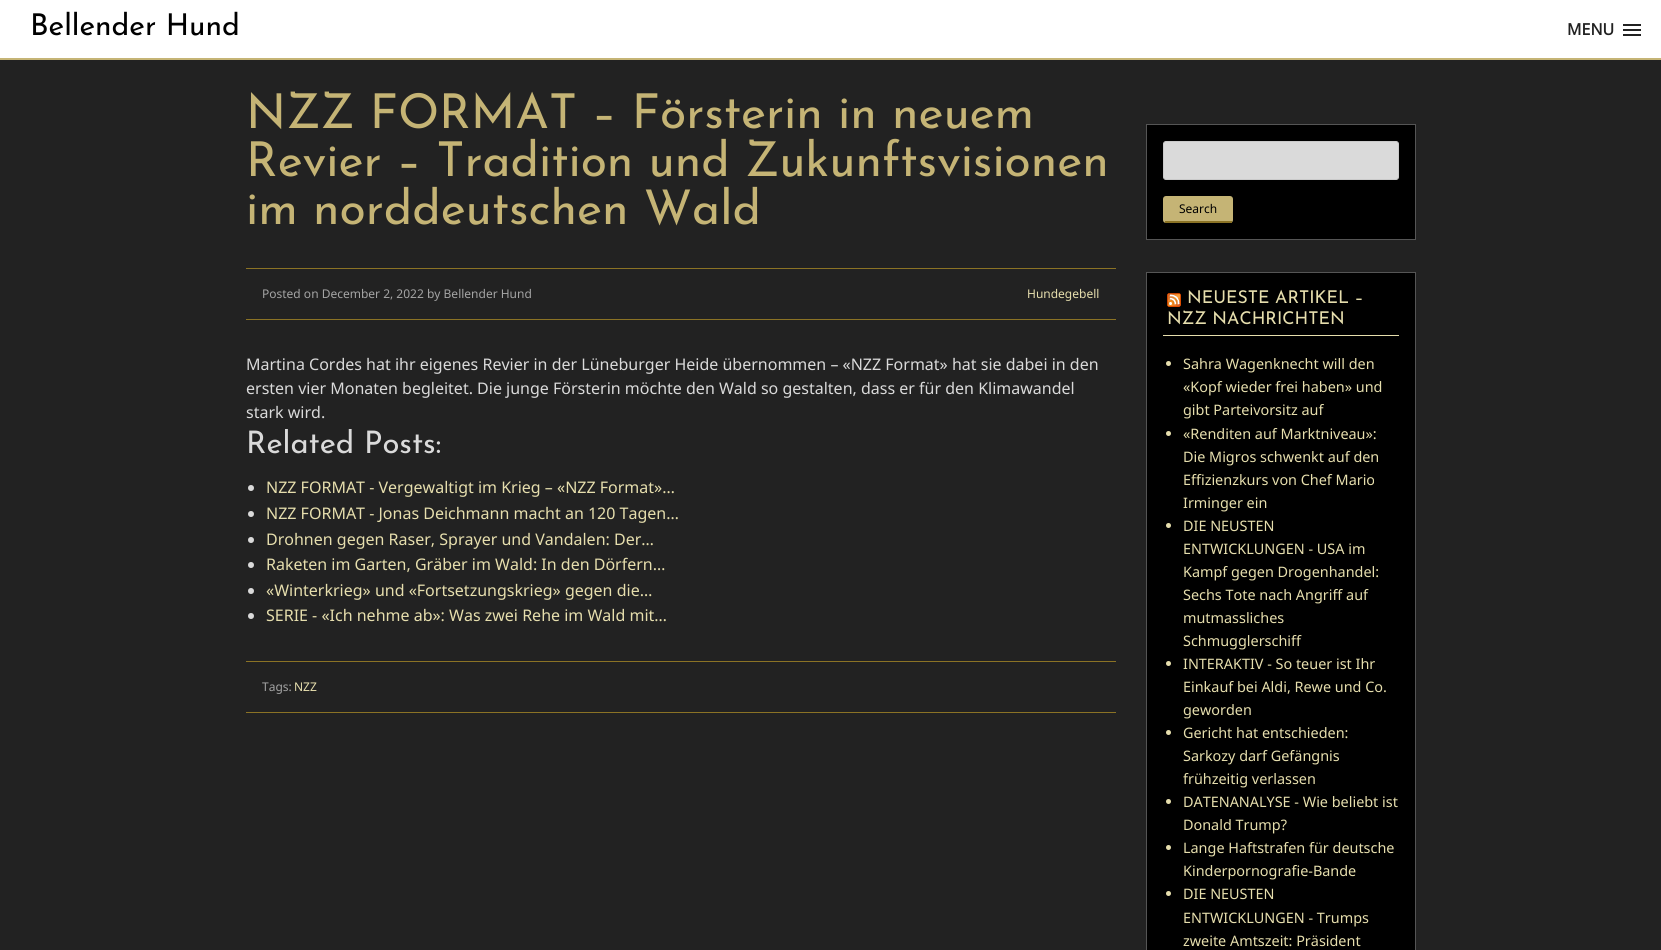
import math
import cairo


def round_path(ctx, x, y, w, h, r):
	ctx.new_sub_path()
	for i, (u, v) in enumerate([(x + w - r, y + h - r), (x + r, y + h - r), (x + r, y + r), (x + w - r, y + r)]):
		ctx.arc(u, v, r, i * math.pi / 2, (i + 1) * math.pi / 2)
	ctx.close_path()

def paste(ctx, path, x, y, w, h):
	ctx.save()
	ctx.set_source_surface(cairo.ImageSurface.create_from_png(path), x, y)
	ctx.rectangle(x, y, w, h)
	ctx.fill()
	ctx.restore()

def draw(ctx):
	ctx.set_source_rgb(0.133, 0.133, 0.133)
	ctx.paint()
	ctx.set_source_rgb(1, 1, 1)
	ctx.rectangle(0, 0, 1661, 58)
	ctx.fill()
	ctx.set_source_rgb(0.773, 0.706, 0.459)
	ctx.rectangle(0, 58, 1661, 2)
	ctx.fill()
	ctx.select_font_face('Josefin Sans Thin')
	ctx.set_font_size(30)
	ctx.set_source_rgb(0, 0, 0)
	ctx.move_to(30, 35)
	ctx.show_text('Bellender Hund')
	ctx.select_font_face('Noto Sans', cairo.FONT_SLANT_NORMAL, cairo.FONT_WEIGHT_BOLD)
	ctx.set_font_size(16)
	ctx.set_source_rgb(0.133, 0.133, 0.133)
	ctx.move_to(1567, 35)
	ctx.show_text('MENU')
	ctx.rectangle(1623, 29, 18, 2)
	ctx.rectangle(1623, 24, 18, 2)
	ctx.rectangle(1623, 34, 18, 2)
	ctx.fill()
	ctx.select_font_face('Josefin Sans Thin')
	ctx.set_font_size(48)
	ctx.set_source_rgb(0.773, 0.706, 0.459)
	for x, y, s in [
		(246, 128, 'NZZ FORMAT – Försterin in neuem'),
		(246, 176, 'Revier – Tradition und Zukunftsvisionen'),
		(246, 224, 'im norddeutschen Wald'),
	]:
		ctx.move_to(x, y)
		ctx.show_text(s)
	ctx.set_source_rgb(0.545, 0.451, 0.145)
	ctx.rectangle(246, 268, 870, 1)
	ctx.fill()
	ctx.rectangle(246, 319, 870, 1)
	ctx.fill()
	ctx.select_font_face('Noto Sans')
	ctx.set_font_size(12)
	ctx.set_source_rgb(0.643, 0.643, 0.643)
	ctx.move_to(262, 298)
	ctx.show_text('Posted on December 2, 2022 by Bellender Hund')
	ctx.set_source_rgb(0.902, 0.871, 0.678)
	ctx.move_to(1027, 298)
	ctx.show_text('Hundegebell')
	ctx.set_font_size(16)
	ctx.set_source_rgb(0.855, 0.855, 0.855)
	for x, y, s in [
		(246, 370, 'Martina Cordes hat ihr eigenes Revier in der Lüneburger Heide übernommen – «NZZ Format» hat sie dabei in den'),
		(246, 394, 'ersten vier Monaten begleitet. Die junge Försterin möchte den Wald so gestalten, dass er für den Klimawandel'),
		(246, 418, 'stark wird.'),
	]:
		ctx.move_to(x, y)
		ctx.show_text(s)
	ctx.select_font_face('Josefin Sans Thin')
	ctx.set_font_size(31)
	ctx.move_to(246, 453)
	ctx.show_text('Related Posts:')
	ctx.new_path()
	ctx.arc(251, 488, 3, 0, 2 * math.pi)
	ctx.fill()
	ctx.select_font_face('Noto Sans')
	ctx.set_font_size(16)
	ctx.set_source_rgb(0.902, 0.871, 0.678)
	ctx.move_to(266, 493)
	ctx.show_text('NZZ FORMAT - Vergewaltigt im Krieg – «NZZ Format»…')
	ctx.set_source_rgb(0.855, 0.855, 0.855)
	ctx.new_path()
	ctx.arc(251, 514, 3, 0, 2 * math.pi)
	ctx.fill()
	ctx.set_source_rgb(0.902, 0.871, 0.678)
	ctx.move_to(266, 519)
	ctx.show_text('NZZ FORMAT - Jonas Deichmann macht an 120 Tagen…')
	ctx.set_source_rgb(0.855, 0.855, 0.855)
	ctx.new_path()
	ctx.arc(251, 540, 3, 0, 2 * math.pi)
	ctx.fill()
	ctx.set_source_rgb(0.902, 0.871, 0.678)
	ctx.move_to(266, 545)
	ctx.show_text('Drohnen gegen Raser, Sprayer und Vandalen: Der…')
	ctx.set_source_rgb(0.855, 0.855, 0.855)
	ctx.new_path()
	ctx.arc(251, 565, 3, 0, 2 * math.pi)
	ctx.fill()
	ctx.set_source_rgb(0.902, 0.871, 0.678)
	ctx.move_to(266, 570)
	ctx.show_text('Raketen im Garten, Gräber im Wald: In den Dörfern…')
	ctx.set_source_rgb(0.855, 0.855, 0.855)
	ctx.new_path()
	ctx.arc(251, 591, 3, 0, 2 * math.pi)
	ctx.fill()
	ctx.set_source_rgb(0.902, 0.871, 0.678)
	ctx.move_to(266, 596)
	ctx.show_text('«Winterkrieg» und «Fortsetzungskrieg» gegen die…')
	ctx.set_source_rgb(0.855, 0.855, 0.855)
	ctx.new_path()
	ctx.arc(251, 616, 3, 0, 2 * math.pi)
	ctx.fill()
	ctx.set_source_rgb(0.902, 0.871, 0.678)
	ctx.move_to(266, 621)
	ctx.show_text('SERIE - «Ich nehme ab»: Was zwei Rehe im Wald mit…')
	ctx.set_source_rgb(0.545, 0.451, 0.145)
	ctx.rectangle(246, 661, 870, 1)
	ctx.fill()
	ctx.rectangle(246, 712, 870, 1)
	ctx.fill()
	ctx.set_font_size(12)
	ctx.set_source_rgb(0.643, 0.643, 0.643)
	ctx.move_to(262, 691)
	ctx.show_text('Tags:')
	ctx.set_source_rgb(0.902, 0.871, 0.678)
	ctx.move_to(294, 691)
	ctx.show_text('NZZ')
	ctx.set_source_rgb(0, 0, 0)
	ctx.rectangle(1146.5, 124.5, 269, 115)
	ctx.fill_preserve()
	ctx.set_source_rgb(0.333, 0.333, 0.333)
	ctx.set_line_width(1)
	ctx.stroke()
	ctx.set_source_rgb(0.855, 0.855, 0.855)
	round_path(ctx, 1163.5, 141.5, 235, 38, 2.5)
	ctx.fill_preserve()
	ctx.set_source_rgb(0.792, 0.792, 0.792)
	ctx.stroke()
	ctx.set_source_rgb(0.773, 0.706, 0.459)
	round_path(ctx, 1163, 196, 70, 27, 3)
	ctx.fill()
	ctx.set_source_rgb(0.545, 0.451, 0.145)
	ctx.rectangle(1165, 221, 67, 2)
	ctx.fill()
	ctx.set_source_rgb(0, 0, 0)
	ctx.move_to(1179, 213)
	ctx.show_text('Search')
	ctx.rectangle(1146.5, 272.5, 269, 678)
	ctx.fill_preserve()
	ctx.set_source_rgb(0.333, 0.333, 0.333)
	ctx.stroke()
	ctx.set_source_rgb(0.902, 0.871, 0.678)
	ctx.rectangle(1163, 335, 236, 1)
	ctx.fill()
	paste(ctx, 'media/1.png', 1167, 293, 14, 14)
	ctx.select_font_face('Josefin Sans Thin')
	ctx.set_font_size(17.6)
	ctx.move_to(1187, 303)
	ctx.show_text('NEUESTE ARTIKEL –')
	ctx.move_to(1167, 324)
	ctx.show_text('NZZ NACHRICHTEN')
	ctx.new_path()
	ctx.arc(1168.5, 363.5, 2.5, 0, 2 * math.pi)
	ctx.fill()
	ctx.select_font_face('Noto Sans')
	ctx.set_font_size(14.4)
	for x, y, s in [
		(1183, 369, 'Sahra Wagenknecht will den'),
		(1183, 392, '«Kopf wieder frei haben» und'),
		(1183, 415, 'gibt Parteivorsitz auf'),
	]:
		ctx.move_to(x, y)
		ctx.show_text(s)
	ctx.new_path()
	ctx.arc(1168.5, 433.5, 2.5, 0, 2 * math.pi)
	ctx.fill()
	for x, y, s in [
		(1183, 439, '«Renditen auf Marktniveau»:'),
		(1183, 462, 'Die Migros schwenkt auf den'),
		(1183, 485, 'Effizienzkurs von Chef Mario'),
		(1183, 508, 'Irminger ein'),
	]:
		ctx.move_to(x, y)
		ctx.show_text(s)
	ctx.new_path()
	ctx.arc(1168.5, 525.5, 2.5, 0, 2 * math.pi)
	ctx.fill()
	for x, y, s in [
		(1183, 531, 'DIE NEUSTEN'),
		(1183, 554, 'ENTWICKLUNGEN - USA im'),
		(1183, 577, 'Kampf gegen Drogenhandel:'),
		(1183, 600, 'Sechs Tote nach Angriff auf'),
		(1183, 623, 'mutmassliches'),
		(1183, 646, 'Schmugglerschiff'),
	]:
		ctx.move_to(x, y)
		ctx.show_text(s)
	ctx.new_path()
	ctx.arc(1168.5, 663.5, 2.5, 0, 2 * math.pi)
	ctx.fill()
	for x, y, s in [
		(1183, 669, 'INTERAKTIV - So teuer ist Ihr'),
		(1183, 692, 'Einkauf bei Aldi, Rewe und Co.'),
		(1183, 715, 'geworden'),
	]:
		ctx.move_to(x, y)
		ctx.show_text(s)
	ctx.new_path()
	ctx.arc(1168.5, 732.5, 2.5, 0, 2 * math.pi)
	ctx.fill()
	for x, y, s in [
		(1183, 738, 'Gericht hat entschieden:'),
		(1183, 761, 'Sarkozy darf Gefängnis'),
		(1183, 784, 'frühzeitig verlassen'),
	]:
		ctx.move_to(x, y)
		ctx.show_text(s)
	ctx.new_path()
	ctx.arc(1168.5, 801.5, 2.5, 0, 2 * math.pi)
	ctx.fill()
	ctx.move_to(1183, 807)
	ctx.show_text('DATENANALYSE - Wie beliebt ist')
	ctx.move_to(1183, 830)
	ctx.show_text('Donald Trump?')
	ctx.new_path()
	ctx.arc(1168.5, 847.5, 2.5, 0, 2 * math.pi)
	ctx.fill()
	ctx.move_to(1183, 853)
	ctx.show_text('Lange Haftstrafen für deutsche')
	ctx.move_to(1183, 876)
	ctx.show_text('Kinderpornografie-Bande')
	ctx.new_path()
	ctx.arc(1168.5, 893.5, 2.5, 0, 2 * math.pi)
	ctx.fill()
	for x, y, s in [
		(1183, 899, 'DIE NEUSTEN'),
		(1183, 923, 'ENTWICKLUNGEN - Trumps'),
		(1183, 946, 'zweite Amtszeit: Präsident'),
	]:
		ctx.move_to(x, y)
		ctx.show_text(s)


surface = cairo.ImageSurface(cairo.FORMAT_RGB24, 1661, 950)
ctx = cairo.Context(surface)
options = cairo.FontOptions()
options.set_hint_metrics(cairo.HINT_METRICS_OFF)
options.set_hint_style(cairo.HINT_STYLE_NONE)
ctx.set_font_options(options)
ctx.set_miter_limit(4)
draw(ctx)
surface.write_to_png('image.png')
